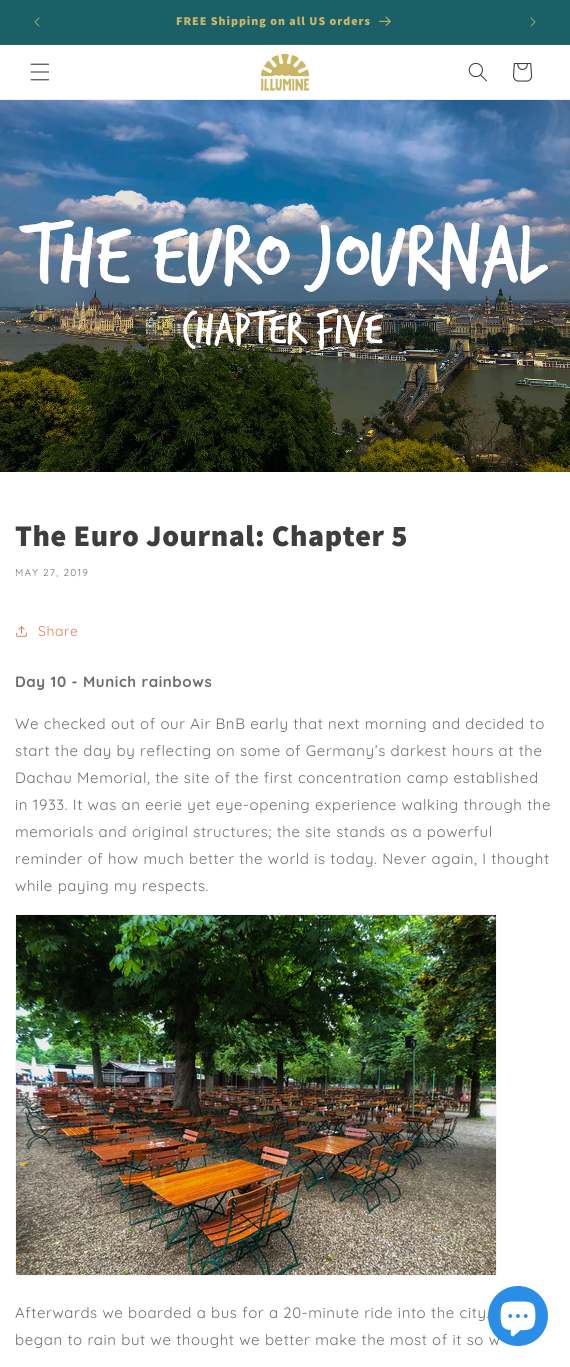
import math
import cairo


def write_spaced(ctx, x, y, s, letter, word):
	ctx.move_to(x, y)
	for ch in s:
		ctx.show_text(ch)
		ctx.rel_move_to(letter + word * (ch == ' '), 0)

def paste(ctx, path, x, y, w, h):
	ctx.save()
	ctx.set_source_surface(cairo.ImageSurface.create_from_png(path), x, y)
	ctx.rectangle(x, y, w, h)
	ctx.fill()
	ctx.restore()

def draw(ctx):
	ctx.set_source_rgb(1, 1, 1)
	ctx.paint()
	ctx.set_source_rgb(0.11, 0.376, 0.404)
	ctx.rectangle(0, 0, 570, 44)
	ctx.fill()
	ctx.set_source_rgb(0.165, 0.404, 0.404)
	ctx.rectangle(0, 44, 570, 1)
	ctx.fill()
	paste(ctx, 'media/1.png', 34, 17, 6, 10)
	ctx.select_font_face('Assistant ExtraBold')
	ctx.set_font_size(12)
	ctx.set_source_rgb(0.788, 0.714, 0.404)
	write_spaced(ctx, 176, 25, 'FREE Shipping on all US orders', 1, 0)
	paste(ctx, 'media/2.png', 379, 16, 12, 10)
	paste(ctx, 'media/3.png', 530, 17, 6, 10)
	ctx.set_source_rgb(0.941, 0.941, 0.937)
	ctx.rectangle(0, 99, 570, 1)
	ctx.fill()
	paste(ctx, 'media/4.png', 30, 63, 20, 18)
	paste(ctx, 'media/5.png', 260, 53, 50, 38)
	paste(ctx, 'media/6.png', 468, 62, 19, 20)
	paste(ctx, 'media/7.png', 513, 63, 20, 19)
	paste(ctx, 'media/8.png', 0, 100, 570, 372)
	ctx.set_font_size(30)
	ctx.set_source_rgb(0.243, 0.243, 0.239)
	write_spaced(ctx, 15, 546, 'The Euro Journal: Chapter 5', 0.6, 0)
	ctx.select_font_face('Quicksand')
	ctx.set_font_size(10)
	ctx.set_source_rgb(0.431, 0.431, 0.431)
	write_spaced(ctx, 15, 576, 'MAY 27, 2019', 1.25, 0)
	paste(ctx, 'media/9.png', 16, 626, 11, 11)
	ctx.set_font_size(14)
	ctx.set_source_rgb(0.878, 0.502, 0.349)
	write_spaced(ctx, 38, 636, 'Share', 0.6, 0)
	ctx.select_font_face('Quicksand', cairo.FONT_SLANT_NORMAL, cairo.FONT_WEIGHT_BOLD)
	ctx.set_font_size(15)
	ctx.set_source_rgb(0.431, 0.431, 0.431)
	write_spaced(ctx, 15, 687, 'Day 10 - Munich rainbows', 0.6, 0)
	ctx.select_font_face('Quicksand')
	for x, y, s in [
		(15, 729, 'We checked out of our Air BnB early that next morning and decided to'),
		(15, 756, 'start the day by reflecting on some of Germany’s darkest hours at the'),
		(15, 783, 'Dachau Memorial, the site of the first concentration camp established'),
		(15, 810, 'in 1933. It was an eerie yet eye-opening experience walking through the'),
		(15, 837, 'memorials and original structures; the site stands as a powerful'),
		(15, 864, 'reminder of how much better the world is today. Never again, I thought'),
		(15, 891, 'while paying my respects.'),
	]:
		write_spaced(ctx, x, y, s, 0.6, 0)
	ctx.rectangle(15.5, 914.5, 481, 361)
	ctx.set_source_rgb(0.961, 0.961, 0.961)
	ctx.set_line_width(1)
	ctx.stroke()
	paste(ctx, 'media/10.png', 16, 915, 480, 360)
	ctx.set_source_rgb(0.431, 0.431, 0.431)
	write_spaced(ctx, 15, 1318, 'Afterwards we boarded a bus for a 20-minute ride into the city.', 0.6, 0)
	write_spaced(ctx, 15, 1345, 'began to rain but we thought we better make the most of it so w', 0.6, 0)
	ctx.set_source_rgb(0.165, 0.557, 0.906)
	ctx.new_path()
	ctx.arc(518, 1316, 30, 0, 2 * math.pi)
	ctx.fill()
	paste(ctx, 'media/11.png', 500, 1301, 36, 36)


surface = cairo.ImageSurface(cairo.FORMAT_RGB24, 570, 1367)
ctx = cairo.Context(surface)
options = cairo.FontOptions()
options.set_hint_metrics(cairo.HINT_METRICS_OFF)
options.set_hint_style(cairo.HINT_STYLE_NONE)
ctx.set_font_options(options)
ctx.set_miter_limit(4)
draw(ctx)
surface.write_to_png('image.png')
